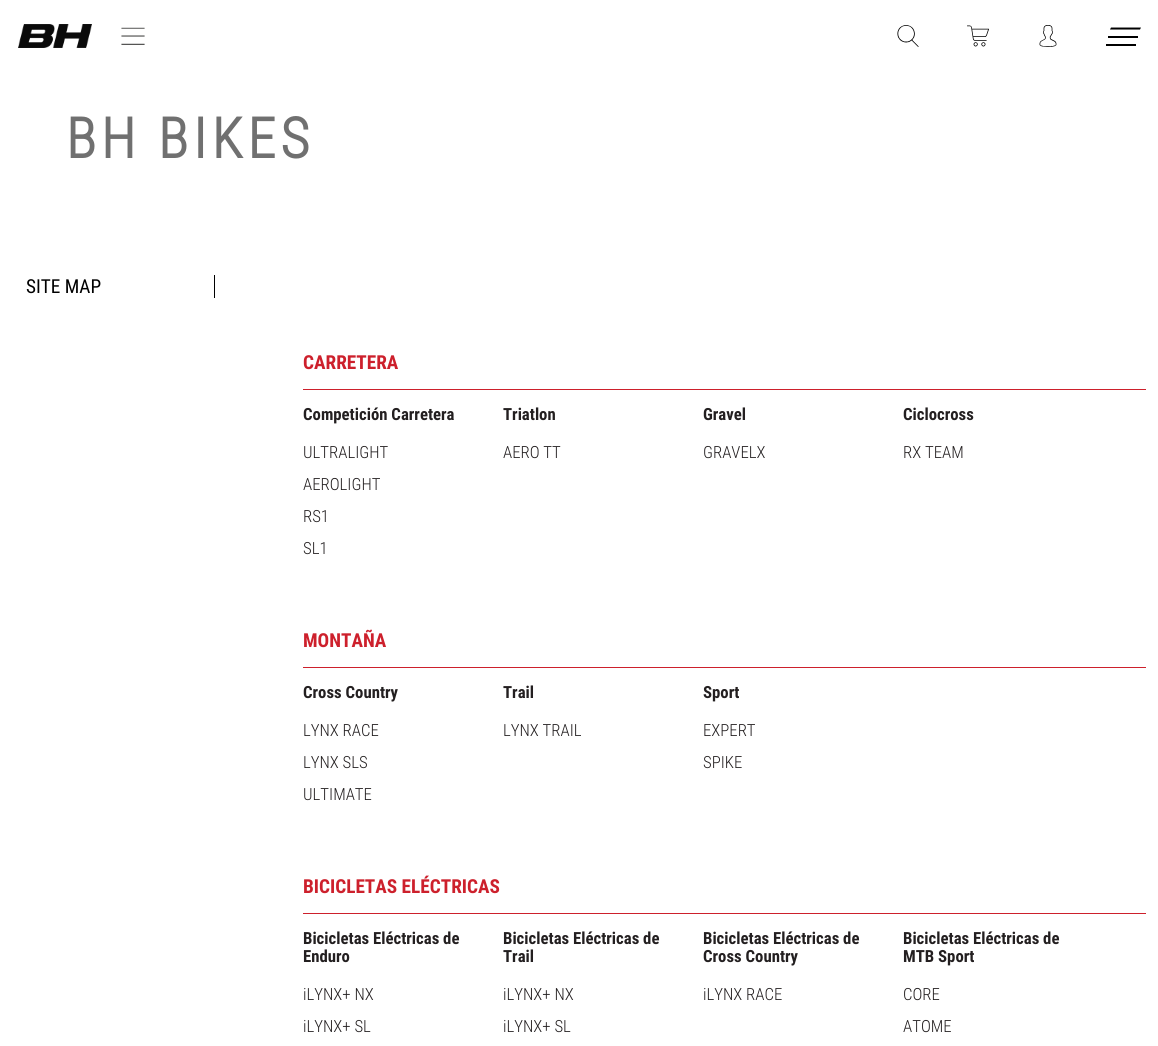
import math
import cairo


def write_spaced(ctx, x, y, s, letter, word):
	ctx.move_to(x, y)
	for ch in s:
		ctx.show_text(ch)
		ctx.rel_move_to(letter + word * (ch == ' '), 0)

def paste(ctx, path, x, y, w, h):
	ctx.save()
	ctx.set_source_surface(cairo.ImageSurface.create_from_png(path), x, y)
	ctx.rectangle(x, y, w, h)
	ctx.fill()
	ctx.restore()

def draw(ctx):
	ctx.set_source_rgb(1, 1, 1)
	ctx.paint()
	paste(ctx, 'media/1.png', 18, 24, 74, 24)
	paste(ctx, 'media/2.png', 121, 27, 24, 18)
	paste(ctx, 'media/3.png', 897, 25, 22, 22)
	paste(ctx, 'media/4.png', 967, 25, 22, 22)
	paste(ctx, 'media/5.png', 1039, 25, 18, 22)
	ctx.set_source_rgb(0, 0, 0)
	ctx.new_path()
	ctx.move_to(1111, 27.5)
	ctx.line_to(1141, 27.5)
	ctx.line_to(1140, 29.5)
	ctx.line_to(1110, 29.5)
	ctx.close_path()
	ctx.fill()
	ctx.rectangle(1108, 36, 30, 2)
	ctx.fill()
	ctx.rectangle(1106, 44, 30, 2)
	ctx.fill()
	ctx.select_font_face('Roboto Condensed', cairo.FONT_SLANT_NORMAL, cairo.FONT_WEIGHT_BOLD)
	ctx.set_font_size(56)
	ctx.set_source_rgb(0.439, 0.439, 0.439)
	write_spaced(ctx, 66, 158, 'BH BIKES', 5, 0)
	ctx.set_source_rgb(0, 0, 0)
	ctx.rectangle(214, 275, 1, 23)
	ctx.fill()
	ctx.select_font_face('Roboto Condensed')
	ctx.set_font_size(19.25)
	ctx.move_to(26, 293)
	ctx.show_text('SITE MAP')
	ctx.set_source_rgb(0.804, 0.125, 0.173)
	ctx.rectangle(303, 389, 843, 1)
	ctx.fill()
	ctx.select_font_face('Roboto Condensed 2', cairo.FONT_SLANT_NORMAL, cairo.FONT_WEIGHT_BOLD)
	ctx.move_to(303, 369)
	ctx.show_text('CARRETERA')
	ctx.set_font_size(16.75)
	ctx.set_source_rgb(0.137, 0.122, 0.125)
	ctx.move_to(303, 420)
	ctx.show_text('Competición Carretera')
	ctx.select_font_face('Roboto Condensed Light')
	for x, y, s in [
		(303, 458, 'ULTRALIGHT'),
		(303, 490, 'AEROLIGHT'),
		(303, 522, 'RS1'),
		(303, 554, 'SL1'),
	]:
		ctx.move_to(x, y)
		ctx.show_text(s)
	ctx.select_font_face('Roboto Condensed 2', cairo.FONT_SLANT_NORMAL, cairo.FONT_WEIGHT_BOLD)
	ctx.move_to(503, 420)
	ctx.show_text('Triatlon')
	ctx.select_font_face('Roboto Condensed Light')
	ctx.move_to(503, 458)
	ctx.show_text('AERO TT')
	ctx.select_font_face('Roboto Condensed 2', cairo.FONT_SLANT_NORMAL, cairo.FONT_WEIGHT_BOLD)
	ctx.move_to(703, 420)
	ctx.show_text('Gravel')
	ctx.select_font_face('Roboto Condensed Light')
	ctx.move_to(703, 458)
	ctx.show_text('GRAVELX')
	ctx.select_font_face('Roboto Condensed 2', cairo.FONT_SLANT_NORMAL, cairo.FONT_WEIGHT_BOLD)
	ctx.move_to(903, 420)
	ctx.show_text('Ciclocross')
	ctx.select_font_face('Roboto Condensed Light')
	ctx.move_to(903, 458)
	ctx.show_text('RX TEAM')
	ctx.set_source_rgb(0.804, 0.125, 0.173)
	ctx.rectangle(303, 667, 843, 1)
	ctx.fill()
	ctx.select_font_face('Roboto Condensed 2', cairo.FONT_SLANT_NORMAL, cairo.FONT_WEIGHT_BOLD)
	ctx.set_font_size(19.25)
	ctx.move_to(303, 647)
	ctx.show_text('MONTAÑA')
	ctx.set_font_size(16.75)
	ctx.set_source_rgb(0.137, 0.122, 0.125)
	ctx.move_to(303, 698)
	ctx.show_text('Cross Country')
	ctx.select_font_face('Roboto Condensed Light')
	for x, y, s in [
		(303, 736, 'LYNX RACE'),
		(303, 768, 'LYNX SLS'),
		(303, 800, 'ULTIMATE'),
	]:
		ctx.move_to(x, y)
		ctx.show_text(s)
	ctx.select_font_face('Roboto Condensed 2', cairo.FONT_SLANT_NORMAL, cairo.FONT_WEIGHT_BOLD)
	ctx.move_to(503, 698)
	ctx.show_text('Trail')
	ctx.select_font_face('Roboto Condensed Light')
	ctx.move_to(503, 736)
	ctx.show_text('LYNX TRAIL')
	ctx.select_font_face('Roboto Condensed 2', cairo.FONT_SLANT_NORMAL, cairo.FONT_WEIGHT_BOLD)
	ctx.move_to(703, 698)
	ctx.show_text('Sport')
	ctx.select_font_face('Roboto Condensed Light')
	ctx.move_to(703, 736)
	ctx.show_text('EXPERT')
	ctx.move_to(703, 768)
	ctx.show_text('SPIKE')
	ctx.set_source_rgb(0.804, 0.125, 0.173)
	ctx.rectangle(303, 913, 843, 1)
	ctx.fill()
	ctx.select_font_face('Roboto Condensed 2', cairo.FONT_SLANT_NORMAL, cairo.FONT_WEIGHT_BOLD)
	ctx.set_font_size(19.25)
	ctx.move_to(303, 893)
	ctx.show_text('BICICLETAS ELÉCTRICAS')
	ctx.set_font_size(16.75)
	ctx.set_source_rgb(0.137, 0.122, 0.125)
	ctx.move_to(303, 944)
	ctx.show_text('Bicicletas Eléctricas de')
	ctx.move_to(303, 962)
	ctx.show_text('Enduro')
	ctx.select_font_face('Roboto Condensed Light')
	ctx.move_to(303, 1000)
	ctx.show_text('iLYNX+ NX')
	ctx.move_to(303, 1032)
	ctx.show_text('iLYNX+ SL')
	ctx.select_font_face('Roboto Condensed 2', cairo.FONT_SLANT_NORMAL, cairo.FONT_WEIGHT_BOLD)
	ctx.move_to(503, 944)
	ctx.show_text('Bicicletas Eléctricas de')
	ctx.move_to(503, 962)
	ctx.show_text('Trail')
	ctx.select_font_face('Roboto Condensed Light')
	ctx.move_to(503, 1000)
	ctx.show_text('iLYNX+ NX')
	ctx.move_to(503, 1032)
	ctx.show_text('iLYNX+ SL')
	ctx.select_font_face('Roboto Condensed 2', cairo.FONT_SLANT_NORMAL, cairo.FONT_WEIGHT_BOLD)
	ctx.move_to(703, 944)
	ctx.show_text('Bicicletas Eléctricas de')
	ctx.move_to(703, 962)
	ctx.show_text('Cross Country')
	ctx.select_font_face('Roboto Condensed Light')
	ctx.move_to(703, 1000)
	ctx.show_text('iLYNX RACE')
	ctx.select_font_face('Roboto Condensed 2', cairo.FONT_SLANT_NORMAL, cairo.FONT_WEIGHT_BOLD)
	ctx.move_to(903, 944)
	ctx.show_text('Bicicletas Eléctricas de')
	ctx.move_to(903, 962)
	ctx.show_text('MTB Sport')
	ctx.select_font_face('Roboto Condensed Light')
	ctx.move_to(903, 1000)
	ctx.show_text('CORE')
	ctx.move_to(903, 1032)
	ctx.show_text('ATOME')


surface = cairo.ImageSurface(cairo.FORMAT_RGB24, 1158, 1046)
ctx = cairo.Context(surface)
options = cairo.FontOptions()
options.set_hint_metrics(cairo.HINT_METRICS_OFF)
options.set_hint_style(cairo.HINT_STYLE_NONE)
ctx.set_font_options(options)
ctx.set_miter_limit(4)
draw(ctx)
surface.write_to_png('image.png')
